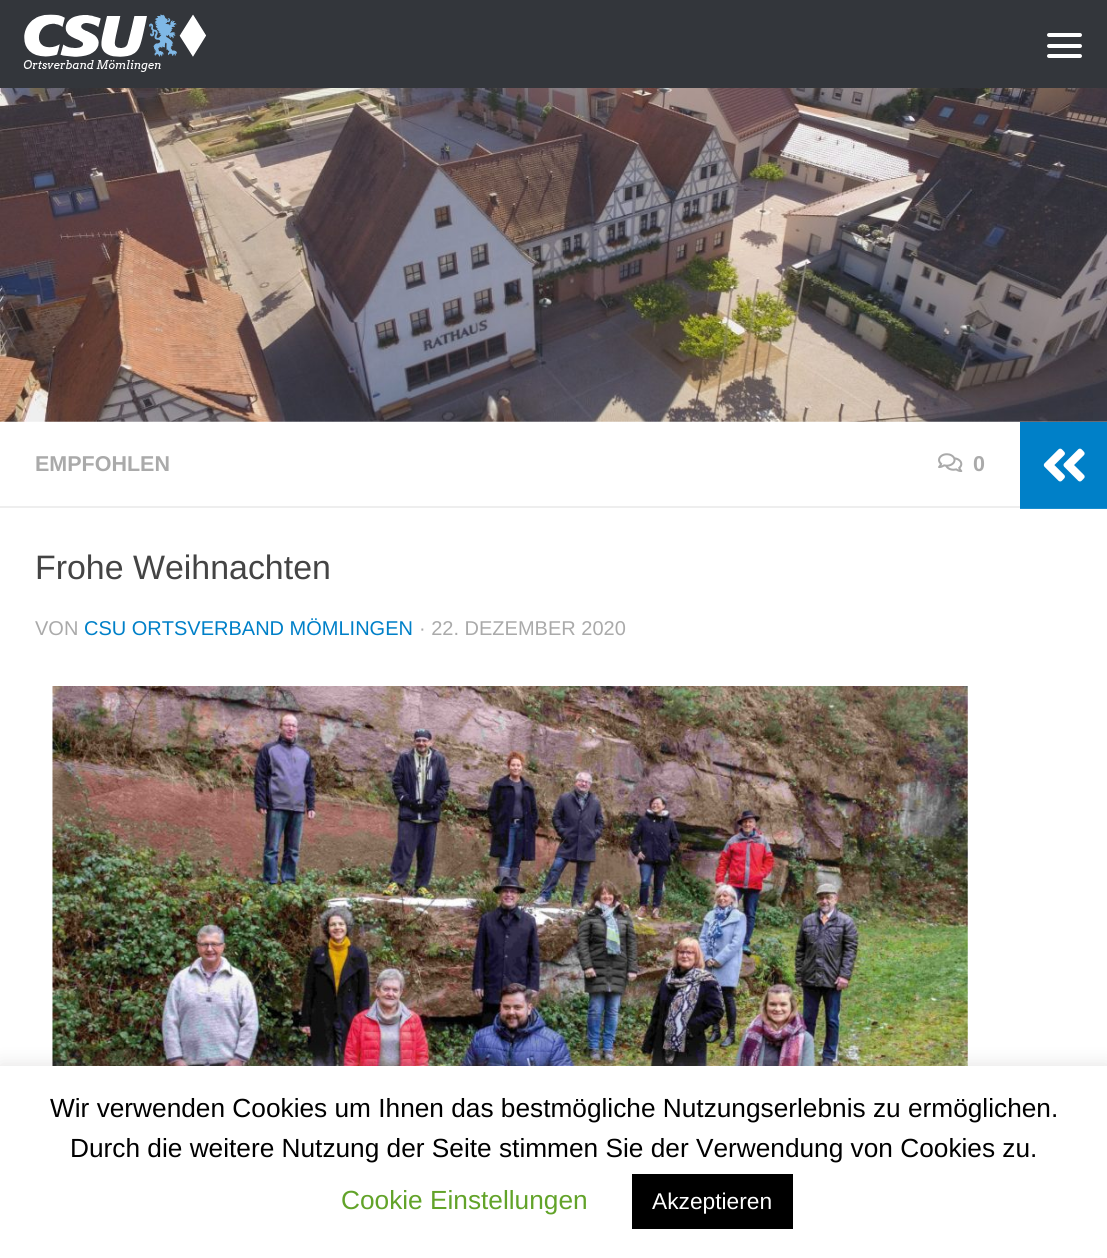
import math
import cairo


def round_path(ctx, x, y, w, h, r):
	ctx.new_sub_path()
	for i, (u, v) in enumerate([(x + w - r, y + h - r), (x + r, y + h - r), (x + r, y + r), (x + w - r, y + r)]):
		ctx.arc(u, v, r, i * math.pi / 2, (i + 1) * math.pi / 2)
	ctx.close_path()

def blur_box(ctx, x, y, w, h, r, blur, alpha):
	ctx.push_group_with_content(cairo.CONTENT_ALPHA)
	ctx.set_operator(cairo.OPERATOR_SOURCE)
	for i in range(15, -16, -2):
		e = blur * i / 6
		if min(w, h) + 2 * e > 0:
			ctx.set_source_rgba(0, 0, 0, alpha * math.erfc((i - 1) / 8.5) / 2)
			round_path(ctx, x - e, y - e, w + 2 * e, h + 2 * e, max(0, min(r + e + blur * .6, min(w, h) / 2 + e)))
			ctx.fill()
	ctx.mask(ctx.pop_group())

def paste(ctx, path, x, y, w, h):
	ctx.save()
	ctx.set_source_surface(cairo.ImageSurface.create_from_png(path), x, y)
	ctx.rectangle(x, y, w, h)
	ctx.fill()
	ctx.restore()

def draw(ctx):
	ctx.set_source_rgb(1, 1, 1)
	ctx.paint()
	ctx.set_source_rgb(0.2, 0.212, 0.231)
	ctx.rectangle(0, 0, 1107, 88)
	ctx.fill()
	paste(ctx, 'media/1.png', 23, 14, 183, 58)
	ctx.set_source_rgb(1, 1, 1)
	round_path(ctx, 1047, 33, 35, 4, 2)
	ctx.fill()
	round_path(ctx, 1047, 44, 35, 4, 2)
	ctx.fill()
	round_path(ctx, 1047, 54, 35, 4, 2)
	ctx.fill()
	paste(ctx, 'media/2.png', 0, 88, 1107, 334)
	ctx.set_source_rgb(0.933, 0.933, 0.933)
	ctx.rectangle(0, 506, 1020, 2)
	ctx.fill()
	ctx.select_font_face('Liberation Sans', cairo.FONT_SLANT_NORMAL, cairo.FONT_WEIGHT_BOLD)
	ctx.set_font_size(21.5)
	ctx.set_source_rgb(0.667, 0.667, 0.667)
	ctx.move_to(35, 471)
	ctx.show_text('EMPFOHLEN')
	paste(ctx, 'media/3.png', 938, 453, 25, 19)
	ctx.move_to(973, 471)
	ctx.show_text('0')
	ctx.select_font_face('Liberation Sans')
	ctx.set_font_size(33.9)
	ctx.set_source_rgb(0.267, 0.267, 0.267)
	ctx.move_to(35, 579)
	ctx.show_text('Frohe Weihnachten')
	ctx.set_font_size(20)
	ctx.set_source_rgb(0.667, 0.667, 0.667)
	ctx.move_to(35, 635)
	ctx.show_text('VON')
	ctx.set_source_rgb(0, 0.502, 0.784)
	ctx.move_to(84, 635)
	ctx.show_text('CSU ORTSVERBAND MÖMLINGEN')
	ctx.set_source_rgb(0.667, 0.667, 0.667)
	ctx.move_to(419, 635)
	ctx.show_text('· 22. DEZEMBER 2020')
	paste(ctx, 'media/4.png', 52, 686, 916, 380)
	ctx.set_source_rgb(0, 0.502, 0.784)
	ctx.rectangle(1020, 422, 87, 86)
	ctx.fill()
	ctx.set_source_rgb(0.102, 0.553, 0.808)
	ctx.rectangle(1020, 508, 87, 1)
	ctx.fill()
	paste(ctx, 'media/5.png', 1043, 448, 42, 34)
	ctx.set_source_rgb(0.675, 0.671, 0.671)
	blur_box(ctx, 0, 1064, 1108, 193, 0, 9, 0.3)
	ctx.set_source_rgb(1, 1, 1)
	ctx.rectangle(0, 1066, 1107, 192)
	ctx.fill()
	ctx.set_font_size(26.25)
	ctx.set_source_rgb(0, 0, 0)
	ctx.move_to(50, 1117)
	ctx.show_text('Wir verwenden Cookies um Ihnen das bestmögliche Nutzungserlebnis zu ermöglichen.')
	ctx.move_to(70, 1157)
	ctx.show_text('Durch die weitere Nutzung der Seite stimmen Sie der Verwendung von Cookies zu.')
	ctx.set_source_rgb(0.384, 0.639, 0.161)
	ctx.move_to(341, 1209)
	ctx.show_text('Cookie Einstellungen')
	ctx.set_source_rgb(0, 0, 0)
	ctx.rectangle(632, 1174, 161, 55)
	ctx.fill()
	ctx.set_font_size(22.75)
	ctx.set_source_rgb(1, 1, 1)
	ctx.move_to(652, 1209)
	ctx.show_text('Akzeptieren')


surface = cairo.ImageSurface(cairo.FORMAT_RGB24, 1107, 1258)
ctx = cairo.Context(surface)
options = cairo.FontOptions()
options.set_hint_metrics(cairo.HINT_METRICS_OFF)
options.set_hint_style(cairo.HINT_STYLE_NONE)
ctx.set_font_options(options)
ctx.set_miter_limit(4)
draw(ctx)
surface.write_to_png('image.png')
